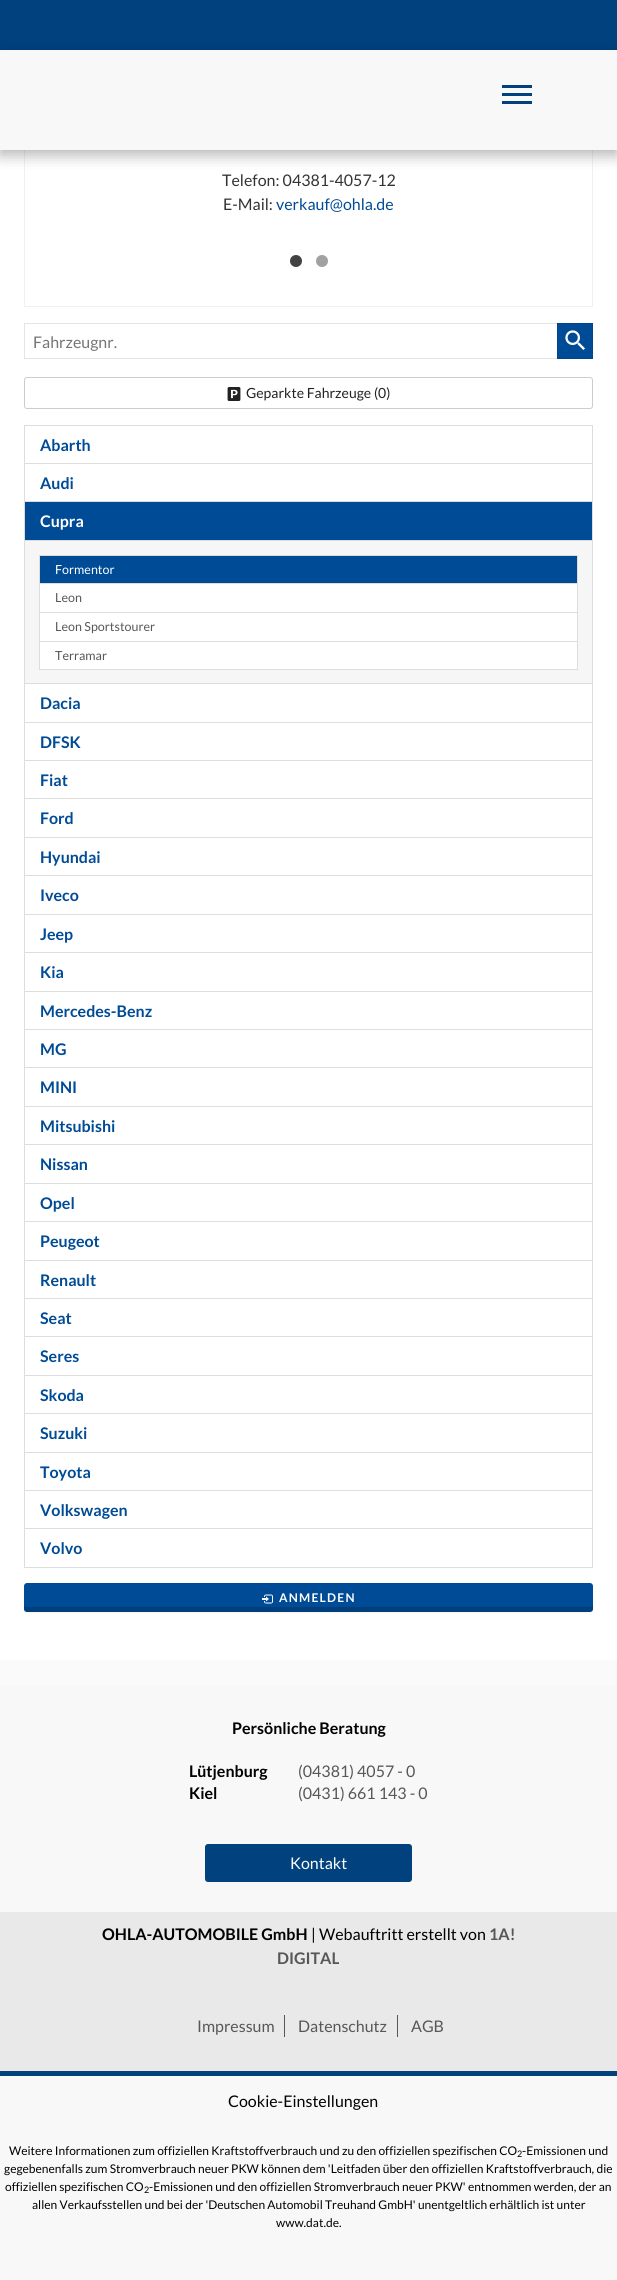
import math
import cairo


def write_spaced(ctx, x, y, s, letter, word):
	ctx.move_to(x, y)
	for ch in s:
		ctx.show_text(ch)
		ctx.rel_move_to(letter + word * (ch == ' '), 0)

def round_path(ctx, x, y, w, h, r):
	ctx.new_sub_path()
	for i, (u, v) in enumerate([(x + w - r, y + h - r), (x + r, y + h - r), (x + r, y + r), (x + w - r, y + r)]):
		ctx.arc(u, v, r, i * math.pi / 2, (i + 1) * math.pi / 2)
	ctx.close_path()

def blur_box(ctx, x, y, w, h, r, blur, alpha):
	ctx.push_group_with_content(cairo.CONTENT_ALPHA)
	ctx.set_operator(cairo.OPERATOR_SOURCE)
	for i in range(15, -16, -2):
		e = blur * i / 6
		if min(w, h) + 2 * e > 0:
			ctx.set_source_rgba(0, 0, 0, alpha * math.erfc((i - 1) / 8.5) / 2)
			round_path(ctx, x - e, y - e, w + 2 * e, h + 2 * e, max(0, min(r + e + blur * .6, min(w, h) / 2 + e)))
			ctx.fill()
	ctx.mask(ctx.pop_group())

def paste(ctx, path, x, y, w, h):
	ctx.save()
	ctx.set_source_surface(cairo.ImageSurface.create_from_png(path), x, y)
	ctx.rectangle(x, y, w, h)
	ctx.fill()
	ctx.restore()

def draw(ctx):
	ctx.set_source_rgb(1, 1, 1)
	ctx.paint()
	ctx.rectangle(24.5, -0.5, 568, 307)
	ctx.set_source_rgb(0.933, 0.949, 0.953)
	ctx.set_line_width(1)
	ctx.stroke()
	ctx.set_source_rgb(0, 0.255, 0.494)
	ctx.rectangle(0, 0, 617, 50)
	ctx.fill()
	ctx.set_source_rgb(0, 0, 0)
	blur_box(ctx, 0, 55, 617, 100, 0, 7.5, 0.3)
	ctx.set_source_rgb(0.969, 0.969, 0.969)
	ctx.rectangle(0, 50, 617, 100)
	ctx.fill()
	ctx.set_source_rgb(0, 0.255, 0.494)
	ctx.rectangle(502, 85, 30, 3)
	ctx.rectangle(502, 93, 30, 3)
	ctx.rectangle(502, 101, 30, 3)
	ctx.fill()
	ctx.select_font_face('Lato')
	ctx.set_font_size(16)
	ctx.set_source_rgb(0.2, 0.2, 0.2)
	ctx.move_to(222, 186)
	ctx.show_text('Telefon: 04381-4057-12')
	ctx.move_to(223, 210)
	ctx.show_text('E-Mail:')
	ctx.set_source_rgb(0, 0.294, 0.588)
	ctx.move_to(276, 210)
	ctx.show_text('verkauf@ohla.de')
	ctx.set_source_rgb(0.259, 0.259, 0.259)
	ctx.new_path()
	ctx.arc(296, 261, 6, 0, 2 * math.pi)
	ctx.fill()
	ctx.set_source_rgb(0.631, 0.631, 0.631)
	ctx.arc(322, 261, 6, 0, 2 * math.pi)
	ctx.fill()
	ctx.rectangle(24.5, 323.5, 568, 35)
	ctx.set_source_rgb(0.894, 0.894, 0.894)
	ctx.stroke()
	ctx.set_source_rgb(0.459, 0.459, 0.459)
	ctx.move_to(33, 348)
	ctx.show_text('Fahrzeugnr.')
	ctx.set_source_rgb(0, 0.294, 0.588)
	ctx.rectangle(558, 324, 34, 34)
	ctx.fill()
	paste(ctx, 'media/1.png', 565, 330, 20, 20)
	ctx.rectangle(557.5, 323.5, 35, 35)
	ctx.set_source_rgb(0, 0.267, 0.537)
	ctx.stroke()
	round_path(ctx, 24.5, 377.5, 568, 31, 2.5)
	ctx.set_source_rgb(0.8, 0.8, 0.8)
	ctx.stroke()
	paste(ctx, 'media/2.png', 227, 387, 14, 14)
	ctx.set_font_size(14)
	ctx.set_source_rgb(0.133, 0.133, 0.133)
	ctx.move_to(246, 398)
	ctx.show_text('Geparkte Fahrzeuge (0)')
	ctx.rectangle(24.5, 425.5, 568, 38)
	ctx.set_source_rgb(0.867, 0.867, 0.867)
	ctx.stroke()
	ctx.select_font_face('Lato', cairo.FONT_SLANT_NORMAL, cairo.FONT_WEIGHT_BOLD)
	ctx.set_font_size(16)
	ctx.set_source_rgb(0, 0.294, 0.588)
	ctx.move_to(40, 451)
	ctx.show_text('Abarth')
	ctx.rectangle(24.5, 463.5, 568, 38)
	ctx.set_source_rgb(0.867, 0.867, 0.867)
	ctx.stroke()
	ctx.set_source_rgb(0, 0.294, 0.588)
	ctx.move_to(40, 489)
	ctx.show_text('Audi')
	ctx.set_source_rgb(0.961, 0.961, 0.961)
	ctx.rectangle(24.5, 540.5, 568, 143)
	ctx.fill_preserve()
	ctx.set_source_rgb(0.867, 0.867, 0.867)
	ctx.stroke()
	ctx.set_source_rgb(0, 0.294, 0.588)
	ctx.rectangle(24.5, 501.5, 568, 39)
	ctx.fill_preserve()
	ctx.set_source_rgb(0.867, 0.867, 0.867)
	ctx.stroke()
	ctx.set_source_rgb(1, 1, 1)
	ctx.move_to(40, 527)
	ctx.show_text('Cupra')
	ctx.set_source_rgb(0, 0.294, 0.588)
	ctx.rectangle(39.5, 555.5, 538, 28)
	ctx.fill_preserve()
	ctx.set_source_rgb(0.867, 0.867, 0.867)
	ctx.stroke()
	ctx.select_font_face('Lato')
	ctx.set_font_size(12.5)
	ctx.set_source_rgb(1, 1, 1)
	ctx.move_to(55, 574)
	ctx.show_text('Formentor')
	ctx.rectangle(39.5, 583.5, 538, 29)
	ctx.fill_preserve()
	ctx.set_source_rgb(0.867, 0.867, 0.867)
	ctx.stroke()
	ctx.set_source_rgb(0.341, 0.341, 0.337)
	ctx.move_to(55, 602)
	ctx.show_text('Leon')
	ctx.set_source_rgb(1, 1, 1)
	ctx.rectangle(39.5, 612.5, 538, 29)
	ctx.fill_preserve()
	ctx.set_source_rgb(0.867, 0.867, 0.867)
	ctx.stroke()
	ctx.set_source_rgb(0.341, 0.341, 0.337)
	ctx.move_to(55, 631)
	ctx.show_text('Leon Sportstourer')
	ctx.set_source_rgb(1, 1, 1)
	ctx.rectangle(39.5, 641.5, 538, 28)
	ctx.fill_preserve()
	ctx.set_source_rgb(0.867, 0.867, 0.867)
	ctx.stroke()
	ctx.set_source_rgb(0.341, 0.341, 0.337)
	ctx.move_to(55, 660)
	ctx.show_text('Terramar')
	ctx.rectangle(24.5, 683.5, 568, 39)
	ctx.set_source_rgb(0.867, 0.867, 0.867)
	ctx.stroke()
	ctx.select_font_face('Lato', cairo.FONT_SLANT_NORMAL, cairo.FONT_WEIGHT_BOLD)
	ctx.set_font_size(16)
	ctx.set_source_rgb(0, 0.294, 0.588)
	ctx.move_to(40, 709)
	ctx.show_text('Dacia')
	ctx.rectangle(24.5, 722.5, 568, 38)
	ctx.set_source_rgb(0.867, 0.867, 0.867)
	ctx.stroke()
	ctx.set_source_rgb(0, 0.294, 0.588)
	ctx.move_to(40, 748)
	ctx.show_text('DFSK')
	ctx.rectangle(24.5, 760.5, 568, 38)
	ctx.set_source_rgb(0.867, 0.867, 0.867)
	ctx.stroke()
	ctx.set_source_rgb(0, 0.294, 0.588)
	ctx.move_to(40, 786)
	ctx.show_text('Fiat')
	ctx.rectangle(24.5, 798.5, 568, 39)
	ctx.set_source_rgb(0.867, 0.867, 0.867)
	ctx.stroke()
	ctx.set_source_rgb(0, 0.294, 0.588)
	ctx.move_to(40, 824)
	ctx.show_text('Ford')
	ctx.rectangle(24.5, 837.5, 568, 38)
	ctx.set_source_rgb(0.867, 0.867, 0.867)
	ctx.stroke()
	ctx.set_source_rgb(0, 0.294, 0.588)
	ctx.move_to(40, 863)
	ctx.show_text('Hyundai')
	ctx.rectangle(24.5, 875.5, 568, 39)
	ctx.set_source_rgb(0.867, 0.867, 0.867)
	ctx.stroke()
	ctx.set_source_rgb(0, 0.294, 0.588)
	ctx.move_to(40, 901)
	ctx.show_text('Iveco')
	ctx.rectangle(24.5, 914.5, 568, 38)
	ctx.set_source_rgb(0.867, 0.867, 0.867)
	ctx.stroke()
	ctx.set_source_rgb(0, 0.294, 0.588)
	ctx.move_to(40, 940)
	ctx.show_text('Jeep')
	ctx.rectangle(24.5, 952.5, 568, 39)
	ctx.set_source_rgb(0.867, 0.867, 0.867)
	ctx.stroke()
	ctx.set_source_rgb(0, 0.294, 0.588)
	ctx.move_to(40, 978)
	ctx.show_text('Kia')
	ctx.rectangle(24.5, 991.5, 568, 38)
	ctx.set_source_rgb(0.867, 0.867, 0.867)
	ctx.stroke()
	ctx.set_source_rgb(0, 0.294, 0.588)
	ctx.move_to(40, 1017)
	ctx.show_text('Mercedes-Benz')
	ctx.rectangle(24.5, 1029.5, 568, 38)
	ctx.set_source_rgb(0.867, 0.867, 0.867)
	ctx.stroke()
	ctx.set_source_rgb(0, 0.294, 0.588)
	ctx.move_to(40, 1055)
	ctx.show_text('MG')
	ctx.rectangle(24.5, 1067.5, 568, 39)
	ctx.set_source_rgb(0.867, 0.867, 0.867)
	ctx.stroke()
	ctx.set_source_rgb(0, 0.294, 0.588)
	ctx.move_to(40, 1093)
	ctx.show_text('MINI')
	ctx.rectangle(24.5, 1106.5, 568, 38)
	ctx.set_source_rgb(0.867, 0.867, 0.867)
	ctx.stroke()
	ctx.set_source_rgb(0, 0.294, 0.588)
	ctx.move_to(40, 1132)
	ctx.show_text('Mitsubishi')
	ctx.rectangle(24.5, 1144.5, 568, 39)
	ctx.set_source_rgb(0.867, 0.867, 0.867)
	ctx.stroke()
	ctx.set_source_rgb(0, 0.294, 0.588)
	ctx.move_to(40, 1170)
	ctx.show_text('Nissan')
	ctx.rectangle(24.5, 1183.5, 568, 38)
	ctx.set_source_rgb(0.867, 0.867, 0.867)
	ctx.stroke()
	ctx.set_source_rgb(0, 0.294, 0.588)
	ctx.move_to(40, 1209)
	ctx.show_text('Opel')
	ctx.rectangle(24.5, 1221.5, 568, 39)
	ctx.set_source_rgb(0.867, 0.867, 0.867)
	ctx.stroke()
	ctx.set_source_rgb(0, 0.294, 0.588)
	ctx.move_to(40, 1247)
	ctx.show_text('Peugeot')
	ctx.rectangle(24.5, 1260.5, 568, 38)
	ctx.set_source_rgb(0.867, 0.867, 0.867)
	ctx.stroke()
	ctx.set_source_rgb(0, 0.294, 0.588)
	ctx.move_to(40, 1286)
	ctx.show_text('Renault')
	ctx.rectangle(24.5, 1298.5, 568, 38)
	ctx.set_source_rgb(0.867, 0.867, 0.867)
	ctx.stroke()
	ctx.set_source_rgb(0, 0.294, 0.588)
	ctx.move_to(40, 1324)
	ctx.show_text('Seat')
	ctx.rectangle(24.5, 1336.5, 568, 39)
	ctx.set_source_rgb(0.867, 0.867, 0.867)
	ctx.stroke()
	ctx.set_source_rgb(0, 0.294, 0.588)
	ctx.move_to(40, 1362)
	ctx.show_text('Seres')
	ctx.rectangle(24.5, 1375.5, 568, 38)
	ctx.set_source_rgb(0.867, 0.867, 0.867)
	ctx.stroke()
	ctx.set_source_rgb(0, 0.294, 0.588)
	ctx.move_to(40, 1401)
	ctx.show_text('Skoda')
	ctx.rectangle(24.5, 1413.5, 568, 39)
	ctx.set_source_rgb(0.867, 0.867, 0.867)
	ctx.stroke()
	ctx.set_source_rgb(0, 0.294, 0.588)
	ctx.move_to(40, 1439)
	ctx.show_text('Suzuki')
	ctx.rectangle(24.5, 1452.5, 568, 38)
	ctx.set_source_rgb(0.867, 0.867, 0.867)
	ctx.stroke()
	ctx.set_source_rgb(0, 0.294, 0.588)
	ctx.move_to(40, 1478)
	ctx.show_text('Toyota')
	ctx.rectangle(24.5, 1490.5, 568, 38)
	ctx.set_source_rgb(0.867, 0.867, 0.867)
	ctx.stroke()
	ctx.set_source_rgb(0, 0.294, 0.588)
	ctx.move_to(40, 1516)
	ctx.show_text('Volkswagen')
	ctx.rectangle(24.5, 1528.5, 568, 39)
	ctx.set_source_rgb(0.867, 0.867, 0.867)
	ctx.stroke()
	ctx.set_source_rgb(0, 0.294, 0.588)
	ctx.move_to(40, 1554)
	ctx.show_text('Volvo')
	ctx.set_source_rgb(0, 0, 0)
	blur_box(ctx, 24, 1584, 569, 29, 4, 0.5, 0.05)
	ctx.set_source_rgb(0, 0.294, 0.588)
	round_path(ctx, 24, 1583, 569, 29, 3)
	ctx.fill()
	ctx.set_source_rgba(0.031, 0.031, 0.031, 0.18)
	ctx.new_path()
	ctx.move_to(24, 1604)
	ctx.line_to(24, 1609)
	ctx.curve_to(24, 1611, 25, 1612, 27, 1612)
	ctx.line_to(590, 1612)
	ctx.curve_to(592, 1612, 593, 1611, 593, 1609)
	ctx.line_to(593, 1604)
	ctx.curve_to(593, 1606, 592, 1607, 590, 1607)
	ctx.line_to(27, 1607)
	ctx.curve_to(25, 1607, 24, 1606, 24, 1604)
	ctx.close_path()
	ctx.fill()
	paste(ctx, 'media/3.png', 262, 1594, 11, 10)
	ctx.set_font_size(12)
	ctx.set_source_rgb(1, 1, 1)
	write_spaced(ctx, 279, 1602, 'ANMELDEN', 1.25, 0)
	ctx.set_source_rgb(0.98, 0.98, 0.98)
	ctx.rectangle(0, 1660, 617, 26)
	ctx.fill()
	ctx.set_source_rgb(0.969, 0.969, 0.969)
	ctx.rectangle(0, 1686, 617, 594)
	ctx.fill()
	ctx.set_font_size(16)
	ctx.set_source_rgb(0, 0, 0)
	ctx.move_to(232, 1734)
	ctx.show_text('Persönliche Beratung')
	ctx.move_to(189, 1777)
	ctx.show_text('Lütjenburg')
	ctx.select_font_face('Lato')
	ctx.set_source_rgb(0.341, 0.341, 0.337)
	ctx.move_to(298, 1777)
	ctx.show_text('(04381) 4057 - 0')
	ctx.select_font_face('Lato', cairo.FONT_SLANT_NORMAL, cairo.FONT_WEIGHT_BOLD)
	ctx.set_source_rgb(0, 0, 0)
	ctx.move_to(189, 1799)
	ctx.show_text('Kiel')
	ctx.select_font_face('Lato')
	ctx.set_source_rgb(0.341, 0.341, 0.337)
	ctx.move_to(298, 1799)
	ctx.show_text('(0431) 661 143 - 0')
	ctx.set_source_rgb(0, 0.255, 0.494)
	round_path(ctx, 205, 1844, 207, 38, 3)
	ctx.fill()
	ctx.set_source_rgb(1, 1, 1)
	ctx.move_to(290, 1869)
	ctx.show_text('Kontakt')
	ctx.set_source_rgb(0.914, 0.914, 0.914)
	ctx.rectangle(0, 1912, 617, 159)
	ctx.fill()
	ctx.set_source_rgb(0, 0.255, 0.494)
	ctx.rectangle(0, 2071, 617, 5)
	ctx.fill()
	ctx.select_font_face('Lato', cairo.FONT_SLANT_NORMAL, cairo.FONT_WEIGHT_BOLD)
	ctx.set_source_rgb(0, 0, 0)
	ctx.move_to(102, 1940)
	ctx.show_text('OHLA-AUTOMOBILE GmbH')
	ctx.select_font_face('Lato')
	ctx.move_to(311, 1940)
	ctx.show_text('| Webauftritt erstellt von')
	ctx.select_font_face('Lato', cairo.FONT_SLANT_NORMAL, cairo.FONT_WEIGHT_BOLD)
	ctx.set_source_rgb(0.341, 0.341, 0.337)
	ctx.move_to(489, 1940)
	ctx.show_text('1A!')
	ctx.move_to(277, 1964)
	ctx.show_text('DIGITAL')
	ctx.rectangle(284, 2015, 1, 22)
	ctx.fill()
	ctx.select_font_face('Lato')
	ctx.move_to(197, 2032)
	ctx.show_text('Impressum')
	ctx.rectangle(397, 2015, 1, 22)
	ctx.fill()
	ctx.move_to(298, 2032)
	ctx.show_text('Datenschutz')
	ctx.move_to(411, 2032)
	ctx.show_text('AGB')
	ctx.set_source_rgb(0, 0, 0)
	ctx.move_to(228, 2107)
	ctx.show_text('Cookie-Einstellungen')
	ctx.set_font_size(12)
	ctx.move_to(9, 2155)
	ctx.show_text('Weitere Informationen zum offiziellen Kraftstoffverbrauch und zu den offiziellen spezifischen CO')
	ctx.set_font_size(9)
	ctx.move_to(517, 2157)
	ctx.show_text('2')
	ctx.set_font_size(12)
	for x, y, s in [
		(522, 2155, '-Emissionen und'),
		(4, 2173, 'gegebenenfalls zum Stromverbrauch neuer PKW können dem \'Leitfaden über den offiziellen Kraftstoffverbrauch, die'),
		(5, 2191, 'offiziellen spezifischen CO'),
	]:
		ctx.move_to(x, y)
		ctx.show_text(s)
	ctx.set_font_size(9)
	ctx.move_to(144, 2193)
	ctx.show_text('2')
	ctx.set_font_size(12)
	for x, y, s in [
		(149, 2191, '-Emissionen und den offiziellen Stromverbrauch neuer PKW\' entnommen werden, der an'),
		(32, 2209, 'allen Verkaufsstellen und bei der \'Deutschen Automobil Treuhand GmbH\' unentgeltlich erhältlich ist unter'),
		(276, 2227, 'www.dat.de.'),
	]:
		ctx.move_to(x, y)
		ctx.show_text(s)


surface = cairo.ImageSurface(cairo.FORMAT_RGB24, 617, 2280)
ctx = cairo.Context(surface)
options = cairo.FontOptions()
options.set_hint_metrics(cairo.HINT_METRICS_OFF)
options.set_hint_style(cairo.HINT_STYLE_NONE)
ctx.set_font_options(options)
ctx.set_miter_limit(4)
draw(ctx)
surface.write_to_png('image.png')
